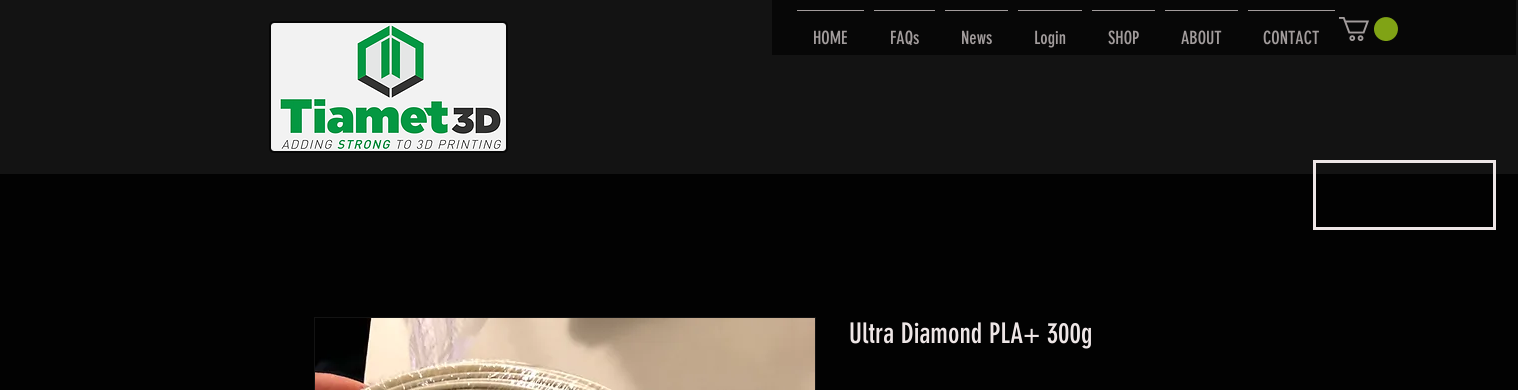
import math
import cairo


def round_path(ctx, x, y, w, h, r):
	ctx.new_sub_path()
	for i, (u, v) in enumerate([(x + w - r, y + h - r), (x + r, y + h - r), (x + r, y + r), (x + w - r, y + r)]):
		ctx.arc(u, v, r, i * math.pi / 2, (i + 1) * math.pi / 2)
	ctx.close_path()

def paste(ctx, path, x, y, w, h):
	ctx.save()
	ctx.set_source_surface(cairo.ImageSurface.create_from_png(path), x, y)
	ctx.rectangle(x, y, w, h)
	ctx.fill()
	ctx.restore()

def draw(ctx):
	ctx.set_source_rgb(0.008, 0.008, 0.008)
	ctx.paint()
	ctx.set_source_rgb(0.078, 0.078, 0.078)
	ctx.rectangle(0, 0, 1518, 174)
	ctx.fill()
	ctx.set_source_rgba(0.008, 0.008, 0.008, 0.5)
	round_path(ctx, 269, 21, 239, 132, 5)
	ctx.fill()
	round_path(ctx, 270, 22, 237, 130, 4)
	ctx.stroke()
	paste(ctx, 'media/1.png', 271, 23, 235, 128)
	ctx.set_source_rgb(0.031, 0.031, 0.031)
	ctx.rectangle(772, 0, 744, 55)
	ctx.fill()
	ctx.set_source_rgb(0.635, 0.612, 0.612)
	ctx.rectangle(797, 10, 67, 1)
	ctx.fill()
	ctx.select_font_face('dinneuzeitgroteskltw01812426')
	ctx.set_font_size(18)
	ctx.move_to(813, 44)
	ctx.show_text('HOME')
	ctx.rectangle(874, 10, 61, 1)
	ctx.fill()
	ctx.move_to(890, 44)
	ctx.show_text('FAQs')
	ctx.rectangle(945, 10, 63, 1)
	ctx.fill()
	ctx.move_to(961, 44)
	ctx.show_text('News')
	ctx.rectangle(1018, 10, 64, 1)
	ctx.fill()
	ctx.move_to(1034, 44)
	ctx.show_text('Login')
	ctx.rectangle(1092, 10, 63, 1)
	ctx.fill()
	ctx.move_to(1108, 44)
	ctx.show_text('SHOP')
	ctx.rectangle(1165, 10, 73, 1)
	ctx.fill()
	ctx.move_to(1181, 44)
	ctx.show_text('ABOUT')
	ctx.rectangle(1248, 10, 87, 1)
	ctx.fill()
	ctx.move_to(1263, 44)
	ctx.show_text('CONTACT')
	paste(ctx, 'media/2.png', 1339, 17, 59, 24)
	ctx.rectangle(1314.5, 161.5, 180, 67)
	ctx.set_source_rgb(0.933, 0.902, 0.902)
	ctx.set_line_width(3)
	ctx.stroke()
	ctx.rectangle(314.5, 317.5, 501, 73)
	ctx.set_source_rgb(0.078, 0.078, 0.078)
	ctx.set_line_width(1)
	ctx.stroke()
	paste(ctx, 'media/3.png', 315, 318, 500, 72)
	ctx.set_font_size(28)
	ctx.set_source_rgb(0.933, 0.902, 0.902)
	ctx.move_to(849, 343)
	ctx.show_text('Ultra Diamond PLA+ 300g')


surface = cairo.ImageSurface(cairo.FORMAT_RGB24, 1518, 390)
ctx = cairo.Context(surface)
options = cairo.FontOptions()
options.set_hint_metrics(cairo.HINT_METRICS_OFF)
options.set_hint_style(cairo.HINT_STYLE_NONE)
ctx.set_font_options(options)
ctx.set_miter_limit(4)
draw(ctx)
surface.write_to_png('image.png')
